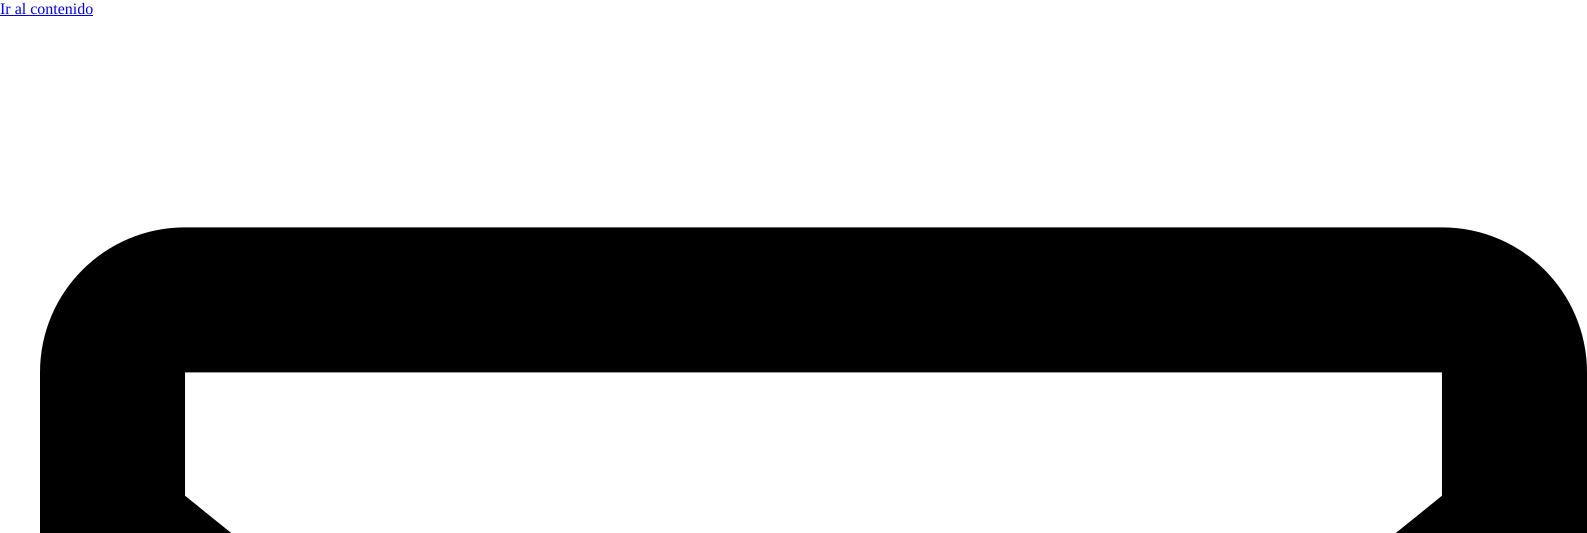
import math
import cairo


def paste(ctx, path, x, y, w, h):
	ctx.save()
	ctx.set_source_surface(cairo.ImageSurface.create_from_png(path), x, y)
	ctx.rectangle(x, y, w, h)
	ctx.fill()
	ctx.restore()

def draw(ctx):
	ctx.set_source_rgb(1, 1, 1)
	ctx.paint()
	ctx.select_font_face('Liberation Serif')
	ctx.set_font_size(16)
	ctx.set_source_rgb(0, 0, 0.933)
	ctx.move_to(0, 14)
	ctx.show_text('Ir al contenido')
	ctx.rectangle(0, 15, 93, 1)
	ctx.fill()
	paste(ctx, 'media/1.png', 40, 227, 1547, 306)


surface = cairo.ImageSurface(cairo.FORMAT_RGB24, 1587, 533)
ctx = cairo.Context(surface)
options = cairo.FontOptions()
options.set_hint_metrics(cairo.HINT_METRICS_OFF)
options.set_hint_style(cairo.HINT_STYLE_NONE)
ctx.set_font_options(options)
ctx.set_miter_limit(4)
draw(ctx)
surface.write_to_png('image.png')
